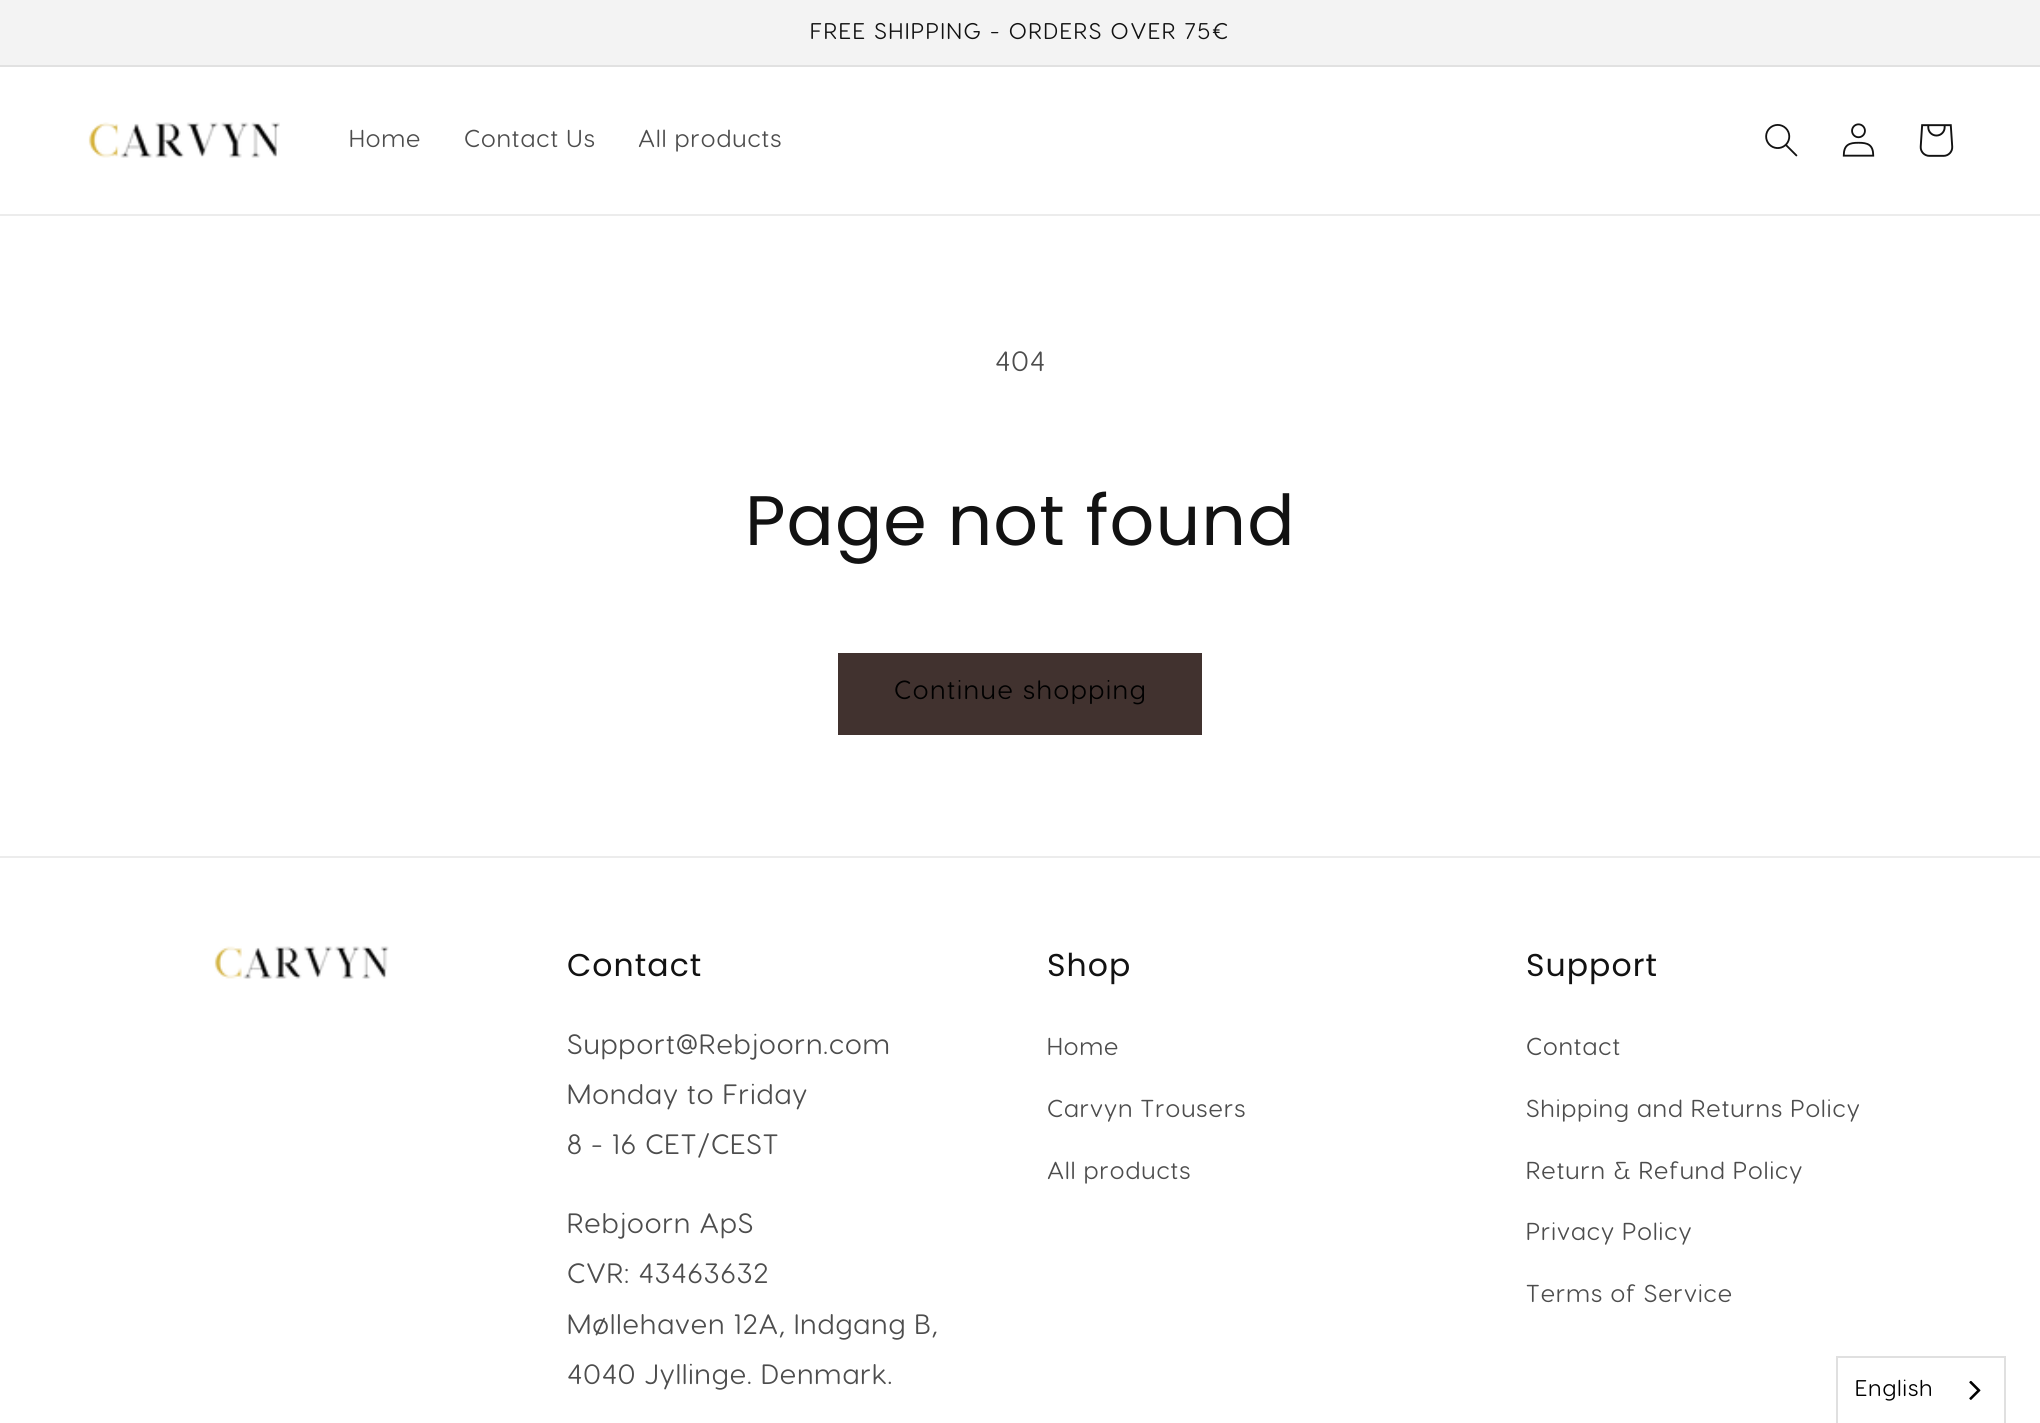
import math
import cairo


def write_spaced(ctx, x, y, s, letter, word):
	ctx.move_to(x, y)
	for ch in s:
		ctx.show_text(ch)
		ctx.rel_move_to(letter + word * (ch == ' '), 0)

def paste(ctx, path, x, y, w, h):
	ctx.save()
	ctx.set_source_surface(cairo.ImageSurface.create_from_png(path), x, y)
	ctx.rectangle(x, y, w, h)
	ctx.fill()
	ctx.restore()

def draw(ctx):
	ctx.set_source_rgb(1, 1, 1)
	ctx.paint()
	ctx.set_source_rgb(0.953, 0.953, 0.953)
	ctx.rectangle(0, 0, 2040, 65)
	ctx.fill()
	ctx.set_source_rgb(0.882, 0.882, 0.882)
	ctx.rectangle(0, 65, 2040, 2)
	ctx.fill()
	ctx.select_font_face('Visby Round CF')
	ctx.set_font_size(22.75)
	ctx.set_source_rgb(0.071, 0.071, 0.071)
	write_spaced(ctx, 810, 39, 'FREE SHIPPING - ORDERS OVER 75€', 1.75, 0)
	ctx.set_source_rgb(0.925, 0.925, 0.925)
	ctx.rectangle(0, 214, 2040, 2)
	ctx.fill()
	paste(ctx, 'media/1.png', 88, 122, 192, 36)
	ctx.set_font_size(24.5)
	ctx.set_source_rgb(0.302, 0.302, 0.302)
	for x, y, s in [
		(349, 147, 'Home'),
		(464, 147, 'Contact Us'),
		(638, 147, 'All products'),
	]:
		write_spaced(ctx, x, y, s, 1.05, 0)
	paste(ctx, 'media/2.png', 1765, 124, 33, 33)
	paste(ctx, 'media/3.png', 1842, 123, 33, 34)
	paste(ctx, 'media/4.png', 1919, 124, 35, 33)
	ctx.set_font_size(28)
	write_spaced(ctx, 995, 371, '404', 1.05, 0)
	ctx.select_font_face('Poppins')
	ctx.set_font_size(70)
	ctx.set_source_rgb(0.071, 0.071, 0.071)
	write_spaced(ctx, 745, 545, 'Page not found', 1.05, 0)
	ctx.rectangle(839, 654, 362, 80)
	ctx.set_source_rgb(0.255, 0.196, 0.184)
	ctx.stroke()
	ctx.rectangle(840, 655, 360, 78)
	ctx.fill()
	ctx.select_font_face('Visby Round CF')
	ctx.set_font_size(26.25)
	ctx.set_source_rgb(0, 0, 0)
	write_spaced(ctx, 894, 699, 'Continue shopping', 1.75, 0)
	ctx.set_source_rgb(0.925, 0.925, 0.925)
	ctx.rectangle(0, 856, 2040, 2)
	ctx.fill()
	paste(ctx, 'media/5.png', 214, 946, 175, 33)
	ctx.select_font_face('Poppins')
	ctx.set_font_size(31.5)
	ctx.set_source_rgb(0.071, 0.071, 0.071)
	write_spaced(ctx, 567, 976, 'Contact', 1.05, 0)
	ctx.select_font_face('Visby Round CF')
	ctx.set_font_size(28)
	ctx.set_source_rgb(0.302, 0.302, 0.302)
	for x, y, s in [
		(567, 1054, 'Support@Rebjoorn.com'),
		(567, 1104, 'Monday to Friday'),
		(567, 1154, '8 - 16 CET/CEST'),
		(567, 1233, 'Rebjoorn ApS'),
		(567, 1283, 'CVR: 43463632'),
		(567, 1334, 'Møllehaven 12A, Indgang B,'),
		(567, 1384, '4040 Jyllinge. Denmark.'),
	]:
		write_spaced(ctx, x, y, s, 1.05, 0)
	ctx.select_font_face('Poppins')
	ctx.set_font_size(31.5)
	ctx.set_source_rgb(0.071, 0.071, 0.071)
	write_spaced(ctx, 1047, 976, 'Shop', 1.05, 0)
	ctx.select_font_face('Visby Round CF')
	ctx.set_font_size(24.5)
	ctx.set_source_rgb(0.302, 0.302, 0.302)
	for x, y, s in [
		(1047, 1055, 'Home'),
		(1047, 1117, 'Carvyn Trousers'),
		(1047, 1179, 'All products'),
	]:
		write_spaced(ctx, x, y, s, 1.05, 0)
	ctx.select_font_face('Poppins')
	ctx.set_font_size(31.5)
	ctx.set_source_rgb(0.071, 0.071, 0.071)
	write_spaced(ctx, 1526, 976, 'Support', 1.05, 0)
	ctx.select_font_face('Visby Round CF')
	ctx.set_font_size(24.5)
	ctx.set_source_rgb(0.302, 0.302, 0.302)
	for x, y, s in [
		(1526, 1055, 'Contact'),
		(1526, 1117, 'Shipping and Returns Policy'),
		(1526, 1179, 'Return & Refund Policy'),
		(1526, 1240, 'Privacy Policy'),
		(1526, 1302, 'Terms of Service'),
	]:
		write_spaced(ctx, x, y, s, 1.05, 0)
	ctx.rectangle(1837, 1357, 168, 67)
	ctx.set_source_rgb(0.878, 0.878, 0.878)
	ctx.stroke()
	ctx.set_font_size(22.75)
	ctx.set_source_rgb(0, 0, 0)
	write_spaced(ctx, 1855, 1396, 'English', 1.05, 0)
	paste(ctx, 'media/6.png', 1969, 1380, 12, 20)


surface = cairo.ImageSurface(cairo.FORMAT_RGB24, 2040, 1423)
ctx = cairo.Context(surface)
options = cairo.FontOptions()
options.set_hint_metrics(cairo.HINT_METRICS_OFF)
options.set_hint_style(cairo.HINT_STYLE_NONE)
ctx.set_font_options(options)
ctx.set_miter_limit(4)
draw(ctx)
surface.write_to_png('image.png')
